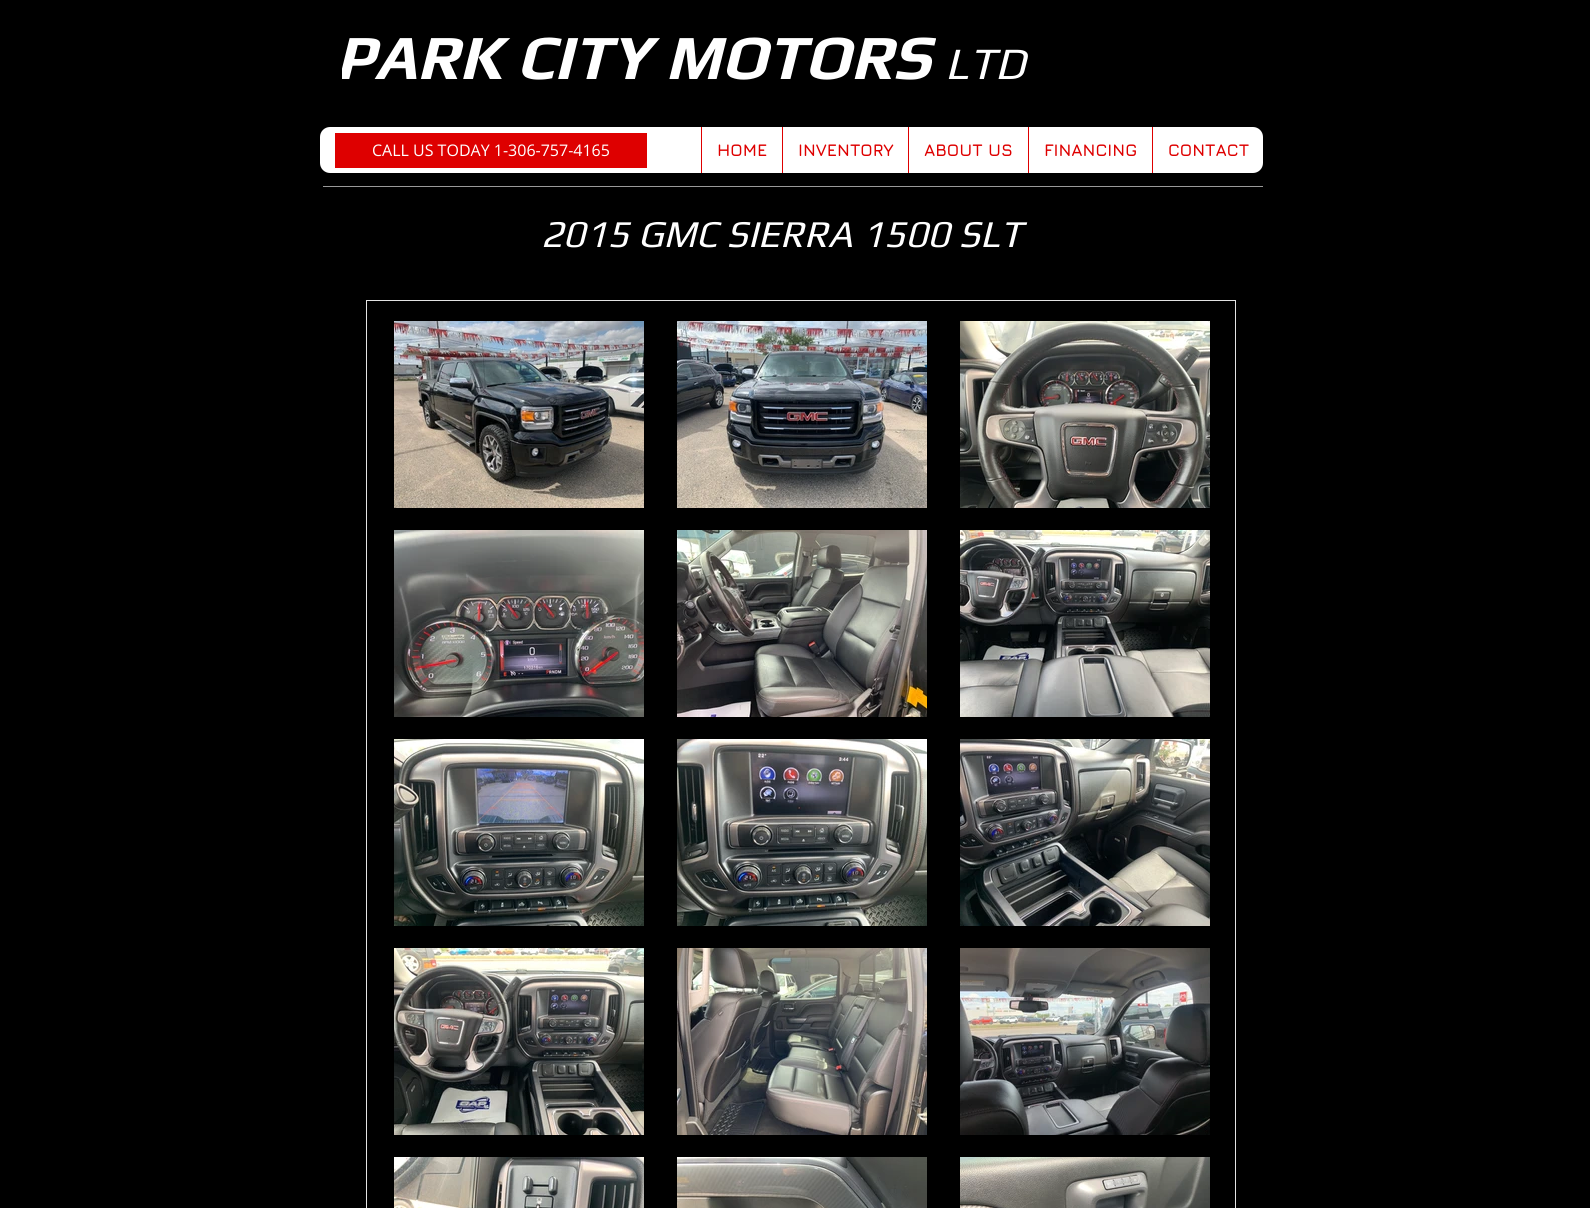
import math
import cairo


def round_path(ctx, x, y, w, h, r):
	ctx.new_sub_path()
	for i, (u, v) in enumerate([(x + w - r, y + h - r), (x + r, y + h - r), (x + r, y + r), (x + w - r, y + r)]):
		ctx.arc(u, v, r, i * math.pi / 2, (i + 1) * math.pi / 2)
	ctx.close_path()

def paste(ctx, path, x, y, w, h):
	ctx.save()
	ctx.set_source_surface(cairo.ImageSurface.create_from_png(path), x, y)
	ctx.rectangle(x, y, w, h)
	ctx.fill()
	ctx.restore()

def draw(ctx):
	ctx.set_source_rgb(0, 0, 0)
	ctx.paint()
	ctx.select_font_face('Play', cairo.FONT_SLANT_ITALIC, cairo.FONT_WEIGHT_BOLD)
	ctx.set_font_size(63)
	ctx.set_source_rgb(1, 1, 1)
	ctx.move_to(335, 79)
	ctx.show_text('PARK CITY MOTORS')
	round_path(ctx, 340.5, 24.5, 716, 67, 3.5)
	ctx.set_source_rgb(0, 0, 0)
	ctx.set_line_width(3)
	ctx.stroke()
	ctx.select_font_face('Play', cairo.FONT_SLANT_ITALIC)
	ctx.set_font_size(45)
	ctx.set_source_rgb(1, 1, 1)
	ctx.move_to(945, 79)
	ctx.show_text('LTD')
	round_path(ctx, 320, 127, 943, 46, 10)
	ctx.fill()
	ctx.set_source_rgb(0.871, 0, 0)
	ctx.rectangle(335, 133, 312, 35)
	ctx.fill()
	ctx.select_font_face('Open Sans')
	ctx.set_font_size(16)
	ctx.set_source_rgb(1, 1, 1)
	ctx.move_to(372, 156)
	ctx.show_text('CALL US TODAY 1-306-757-4165')
	ctx.set_source_rgb(0.871, 0, 0)
	ctx.rectangle(701, 127, 1, 46)
	ctx.fill()
	ctx.select_font_face('Jura', cairo.FONT_SLANT_NORMAL, cairo.FONT_WEIGHT_BOLD)
	ctx.set_font_size(17)
	ctx.move_to(717, 156)
	ctx.show_text('HOME')
	ctx.rectangle(782, 127, 1, 46)
	ctx.fill()
	ctx.move_to(798, 156)
	ctx.show_text('INVENTORY')
	ctx.rectangle(908, 127, 1, 46)
	ctx.fill()
	ctx.move_to(924, 156)
	ctx.show_text('ABOUT US')
	ctx.rectangle(1028, 127, 1, 46)
	ctx.fill()
	ctx.move_to(1044, 156)
	ctx.show_text('FINANCING')
	ctx.rectangle(1152, 127, 1, 46)
	ctx.fill()
	ctx.move_to(1168, 156)
	ctx.show_text('CONTACT')
	ctx.set_source_rgb(0.6, 0.6, 0.6)
	ctx.rectangle(323, 186, 940, 1)
	ctx.fill()
	ctx.select_font_face('Play', cairo.FONT_SLANT_ITALIC)
	ctx.set_font_size(38)
	ctx.set_source_rgb(1, 1, 1)
	ctx.move_to(541, 247)
	ctx.show_text('2015 GMC SIERRA 1500 SLT')
	ctx.rectangle(366.5, 300.5, 869, 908)
	ctx.set_source_rgb(0.894, 0.894, 0.894)
	ctx.set_line_width(1)
	ctx.stroke()
	paste(ctx, 'media/1.png', 394, 321, 250, 187)
	paste(ctx, 'media/2.png', 677, 321, 250, 187)
	paste(ctx, 'media/3.png', 960, 321, 250, 187)
	paste(ctx, 'media/4.png', 394, 530, 250, 187)
	paste(ctx, 'media/5.png', 677, 530, 250, 187)
	paste(ctx, 'media/6.png', 960, 530, 250, 187)
	paste(ctx, 'media/7.png', 394, 739, 250, 187)
	paste(ctx, 'media/8.png', 677, 739, 250, 187)
	paste(ctx, 'media/9.png', 960, 739, 250, 187)
	paste(ctx, 'media/10.png', 394, 948, 250, 187)
	paste(ctx, 'media/11.png', 677, 948, 250, 187)
	paste(ctx, 'media/12.png', 960, 948, 250, 187)
	paste(ctx, 'media/13.png', 394, 1157, 250, 51)
	paste(ctx, 'media/14.png', 677, 1157, 250, 51)
	paste(ctx, 'media/15.png', 960, 1157, 250, 51)


surface = cairo.ImageSurface(cairo.FORMAT_RGB24, 1590, 1208)
ctx = cairo.Context(surface)
options = cairo.FontOptions()
options.set_hint_metrics(cairo.HINT_METRICS_OFF)
options.set_hint_style(cairo.HINT_STYLE_NONE)
ctx.set_font_options(options)
ctx.set_miter_limit(4)
draw(ctx)
surface.write_to_png('image.png')
